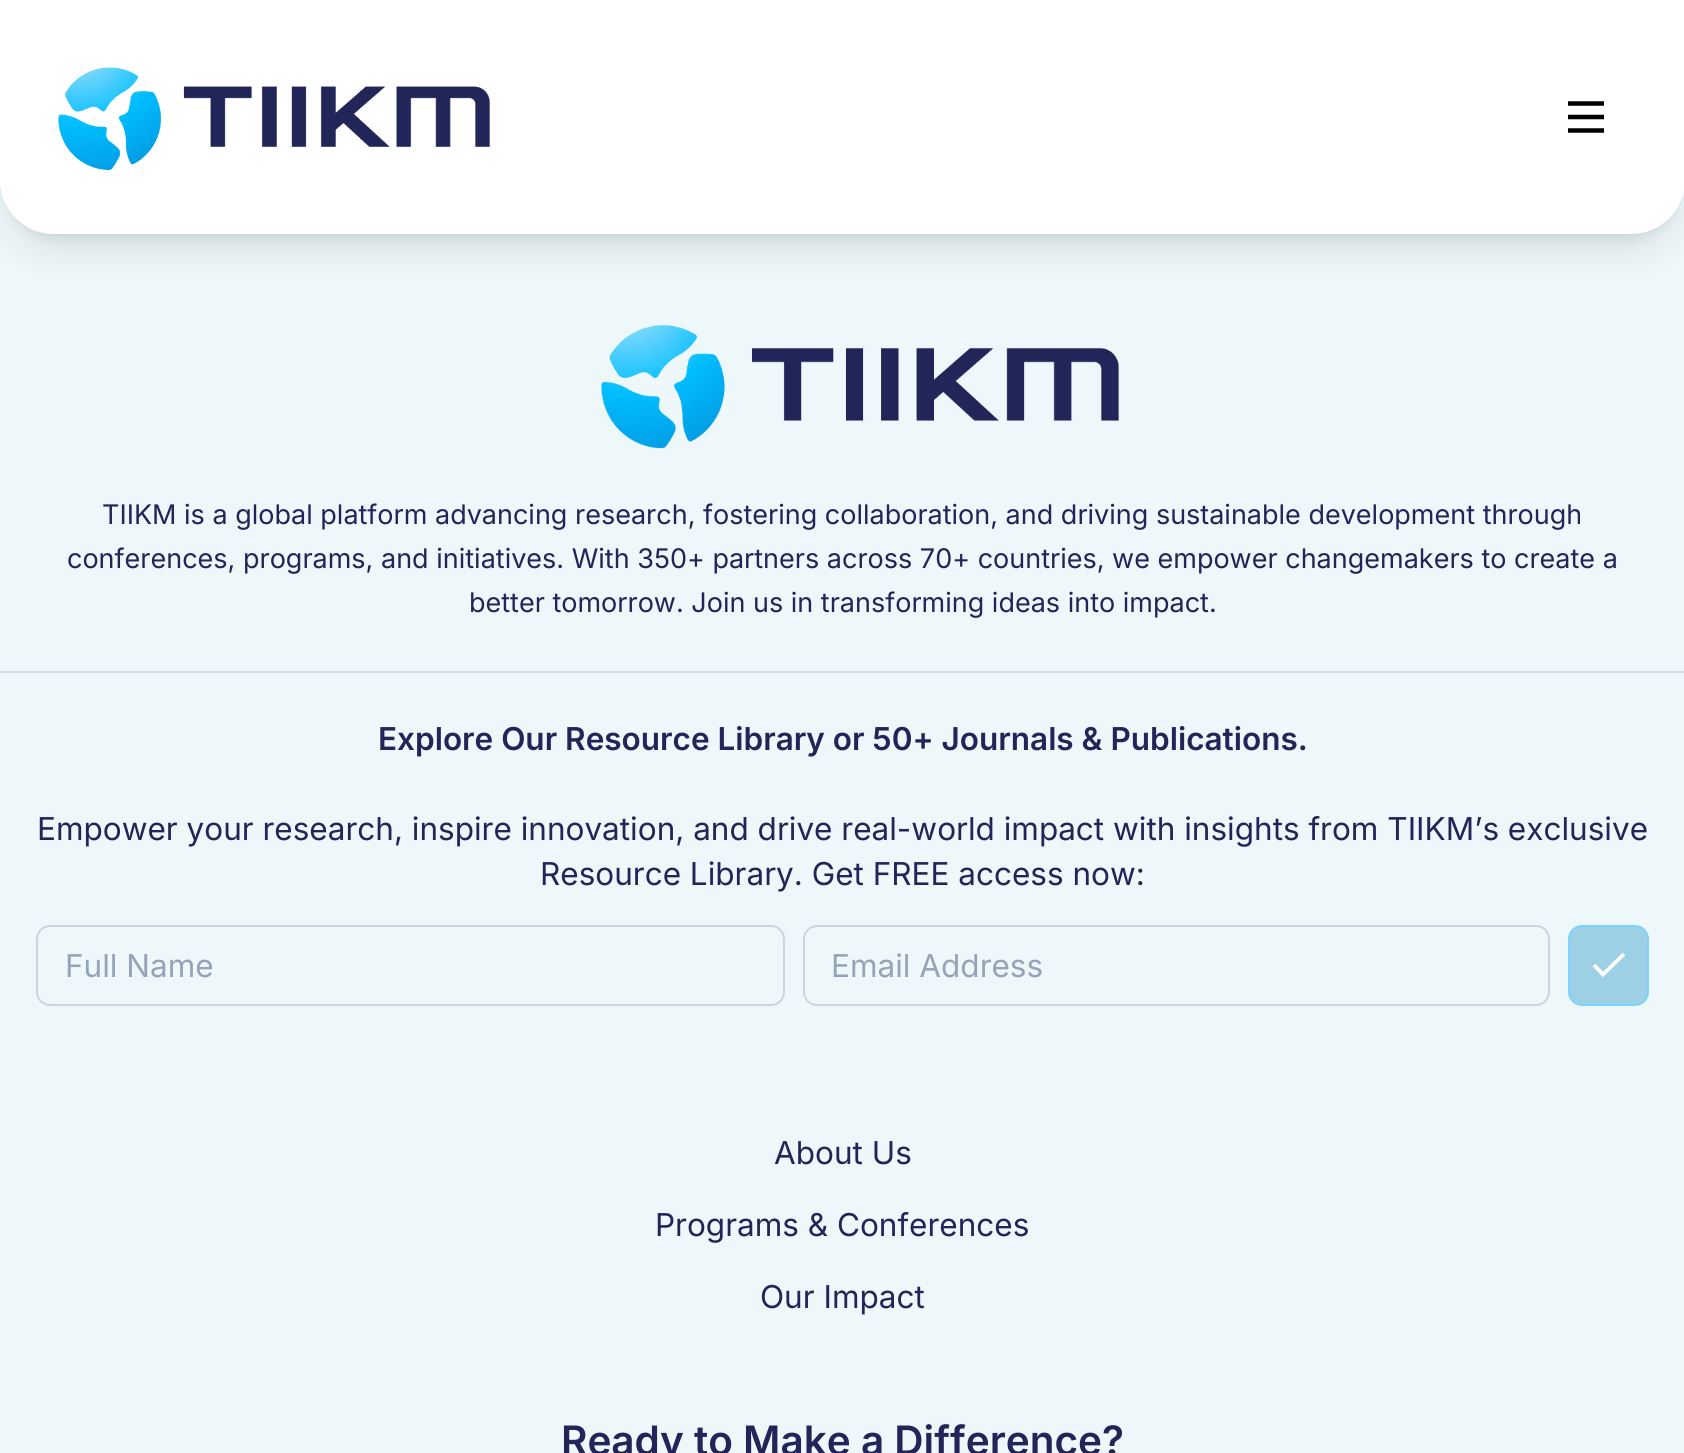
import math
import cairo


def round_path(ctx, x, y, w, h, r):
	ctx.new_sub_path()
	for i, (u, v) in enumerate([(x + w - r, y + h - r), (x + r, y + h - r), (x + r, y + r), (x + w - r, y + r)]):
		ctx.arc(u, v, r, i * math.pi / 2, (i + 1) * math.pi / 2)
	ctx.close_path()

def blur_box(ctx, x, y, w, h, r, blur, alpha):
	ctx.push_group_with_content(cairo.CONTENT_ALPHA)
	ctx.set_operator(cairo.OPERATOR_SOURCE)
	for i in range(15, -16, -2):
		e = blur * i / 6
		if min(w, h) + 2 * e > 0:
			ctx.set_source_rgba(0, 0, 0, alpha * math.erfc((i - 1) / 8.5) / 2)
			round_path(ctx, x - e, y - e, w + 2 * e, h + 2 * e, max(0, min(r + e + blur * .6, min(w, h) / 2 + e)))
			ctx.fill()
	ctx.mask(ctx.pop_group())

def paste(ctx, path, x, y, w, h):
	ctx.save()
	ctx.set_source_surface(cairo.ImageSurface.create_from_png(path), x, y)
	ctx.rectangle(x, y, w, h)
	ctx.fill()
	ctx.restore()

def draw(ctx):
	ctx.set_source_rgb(1, 1, 1)
	ctx.paint()
	ctx.set_source_rgb(0.933, 0.969, 0.984)
	ctx.rectangle(0, 187, 1684, 1266)
	ctx.fill()
	ctx.set_source_rgb(0, 0, 0)
	blur_box(ctx, 9, 18, 1667, 216, 45, 7, 0.1)
	blur_box(ctx, 7, 29, 1672, 221, 47, 17, 0.1)
	ctx.set_source_rgb(1, 1, 1)
	ctx.new_path()
	ctx.move_to(0, 0)
	ctx.line_to(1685, 0)
	ctx.line_to(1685, 180)
	ctx.curve_to(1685, 210, 1661, 234, 1631, 234)
	ctx.line_to(54, 234)
	ctx.curve_to(24, 234, 0, 210, 0, 180)
	ctx.close_path()
	ctx.fill()
	paste(ctx, 'media/1.png', 58, 67, 433, 103)
	ctx.new_path()
	ctx.move_to(1568, 103.5)
	ctx.line_to(1604, 103.5)
	ctx.move_to(1568, 117)
	ctx.line_to(1604, 117)
	ctx.move_to(1568, 130.5)
	ctx.line_to(1604, 130.5)
	ctx.set_source_rgb(0, 0, 0)
	ctx.set_line_width(4.5)
	ctx.stroke()
	paste(ctx, 'media/2.png', 601, 324, 518, 125)
	ctx.select_font_face('Inter')
	ctx.set_font_size(27)
	ctx.set_source_rgb(0.129, 0.145, 0.345)
	for x, y, s in [
		(102, 524, 'TIIKM is a global platform advancing research, fostering collaboration, and driving sustainable development through'),
		(67, 568, 'conferences, programs, and initiatives. With 350+ partners across 70+ countries, we empower changemakers to create a'),
		(469, 612, 'better tomorrow. Join us in transforming ideas into impact.'),
	]:
		ctx.move_to(x, y)
		ctx.show_text(s)
	ctx.set_source_rgb(0.851, 0.89, 0.922)
	ctx.rectangle(0, 671, 1684, 2)
	ctx.fill()
	ctx.select_font_face('Inter SemiBold')
	ctx.set_font_size(31.5)
	ctx.set_source_rgb(0.129, 0.145, 0.345)
	ctx.move_to(378, 750)
	ctx.show_text('Explore Our Resource Library or 50+ Journals & Publications.')
	ctx.select_font_face('Inter')
	ctx.move_to(37, 840)
	ctx.show_text('Empower your research, inspire innovation, and drive real-world impact with insights from TIIKM’s exclusive')
	ctx.move_to(540, 885)
	ctx.show_text('Resource Library. Get FREE access now:')
	round_path(ctx, 37, 926, 747, 79, 13)
	ctx.set_source_rgb(0.796, 0.835, 0.882)
	ctx.set_line_width(2)
	ctx.stroke()
	ctx.set_source_rgb(0.58, 0.639, 0.722)
	ctx.move_to(65, 977)
	ctx.show_text('Full Name')
	round_path(ctx, 804, 926, 745, 79, 13)
	ctx.set_source_rgb(0.796, 0.835, 0.882)
	ctx.stroke()
	ctx.set_source_rgb(0.58, 0.639, 0.722)
	ctx.move_to(831, 977)
	ctx.show_text('Email Address')
	ctx.set_source_rgb(0.616, 0.816, 0.894)
	round_path(ctx, 1569, 926, 79, 79, 13)
	ctx.fill_preserve()
	ctx.set_source_rgb(0.49, 0.827, 0.988)
	ctx.stroke()
	ctx.new_path()
	ctx.move_to(1624, 954)
	ctx.line_to(1603, 974.5)
	ctx.line_to(1594, 965)
	ctx.set_source_rgb(1, 1, 1)
	ctx.set_line_width(3.8)
	ctx.stroke()
	ctx.set_source_rgb(0.129, 0.145, 0.345)
	for x, y, s in [
		(774, 1164, 'About Us'),
		(655, 1236, 'Programs & Conferences'),
		(760, 1308, 'Our Impact'),
	]:
		ctx.move_to(x, y)
		ctx.show_text(s)
	ctx.select_font_face('Inter SemiBold')
	ctx.set_font_size(40.5)
	ctx.move_to(561, 1455)
	ctx.show_text('Ready to Make a Difference?')


surface = cairo.ImageSurface(cairo.FORMAT_RGB24, 1684, 1453)
ctx = cairo.Context(surface)
options = cairo.FontOptions()
options.set_hint_metrics(cairo.HINT_METRICS_OFF)
options.set_hint_style(cairo.HINT_STYLE_NONE)
ctx.set_font_options(options)
ctx.set_miter_limit(4)
draw(ctx)
surface.write_to_png('image.png')
